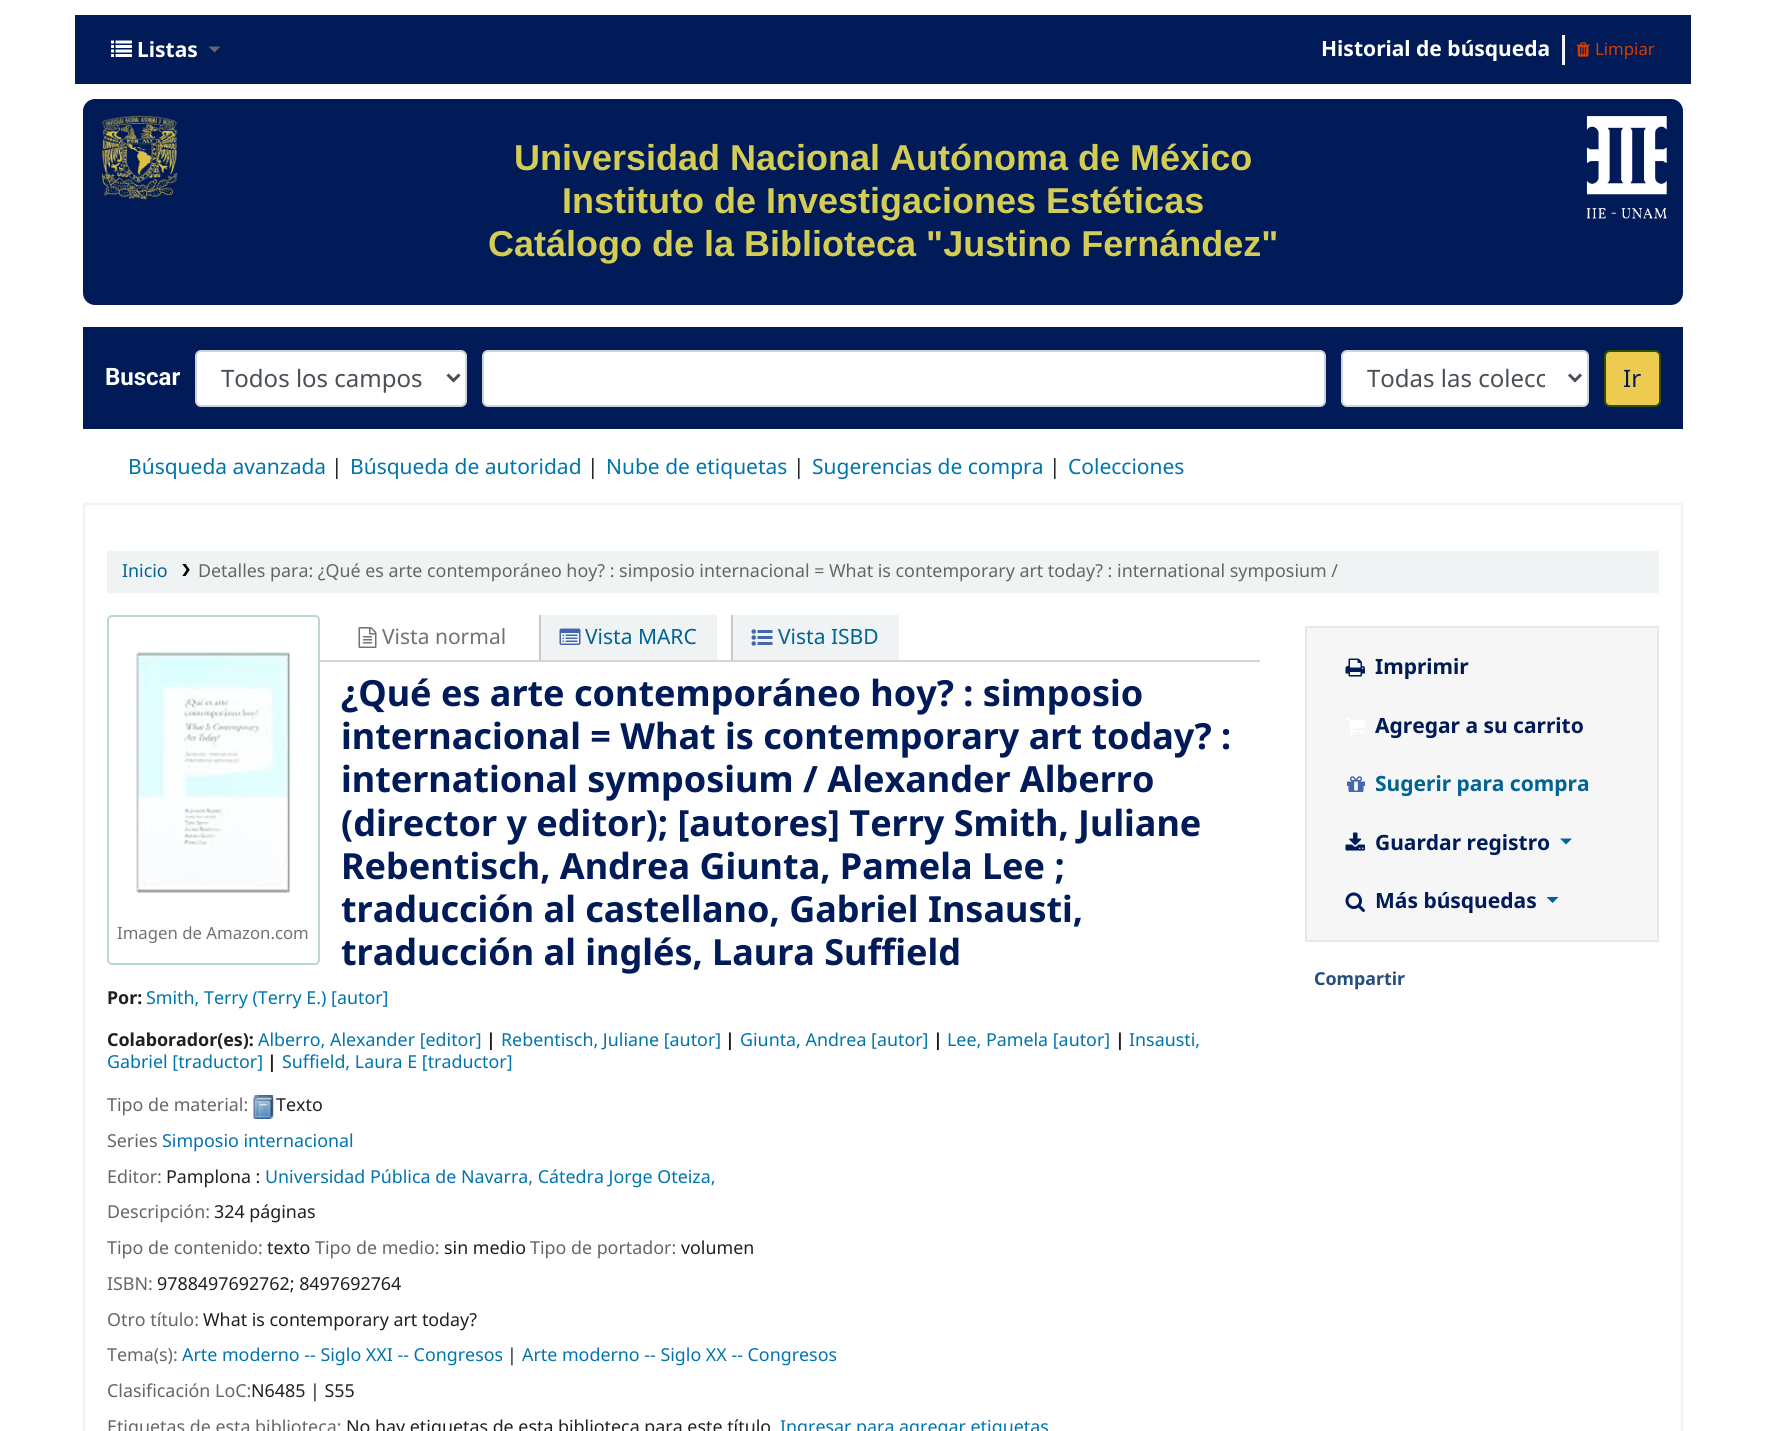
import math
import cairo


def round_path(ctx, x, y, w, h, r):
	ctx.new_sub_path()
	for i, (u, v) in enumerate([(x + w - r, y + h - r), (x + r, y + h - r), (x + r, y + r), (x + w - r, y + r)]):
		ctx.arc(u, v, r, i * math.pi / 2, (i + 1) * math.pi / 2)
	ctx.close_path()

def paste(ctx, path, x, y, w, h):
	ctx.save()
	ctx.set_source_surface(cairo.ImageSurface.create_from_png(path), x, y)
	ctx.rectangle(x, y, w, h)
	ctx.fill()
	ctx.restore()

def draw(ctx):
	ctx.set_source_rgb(1, 1, 1)
	ctx.paint()
	ctx.set_source_rgb(0, 0.106, 0.345)
	ctx.rectangle(75, 15, 1616, 69)
	ctx.fill()
	paste(ctx, 'media/1.png', 111, 40, 21, 17)
	ctx.select_font_face('Noto Sans', cairo.FONT_SLANT_NORMAL, cairo.FONT_WEIGHT_BOLD)
	ctx.set_font_size(21)
	ctx.set_source_rgb(1, 1, 1)
	ctx.move_to(137, 57)
	ctx.show_text('Listas')
	ctx.set_source_rgb(0.4, 0.4, 0.4)
	ctx.new_path()
	ctx.move_to(208.5, 46.5)
	ctx.line_to(220.5, 46.5)
	ctx.line_to(214.5, 52.5)
	ctx.close_path()
	ctx.fill()
	ctx.set_source_rgb(1, 1, 1)
	ctx.move_to(1321, 56)
	ctx.show_text('Historial de búsqueda')
	ctx.set_source_rgb(0.988, 0.976, 0.988)
	ctx.rectangle(1564, 35, 1, 30)
	ctx.fill()
	ctx.set_source_rgb(0.933, 0.933, 0.933)
	ctx.rectangle(1562, 63, 3, 2)
	ctx.rectangle(1562, 35, 2, 30)
	ctx.fill()
	paste(ctx, 'media/2.png', 1576, 42, 14, 15)
	ctx.select_font_face('Noto Sans')
	ctx.set_font_size(16.75)
	ctx.set_source_rgb(0.831, 0.235, 0)
	ctx.move_to(1595, 55)
	ctx.show_text('Limpiar')
	ctx.set_source_rgb(0, 0.106, 0.345)
	round_path(ctx, 83, 99, 1600, 206, 12)
	ctx.fill()
	paste(ctx, 'media/3.png', 101, 115, 77, 85)
	ctx.select_font_face('Liberation Sans', cairo.FONT_SLANT_NORMAL, cairo.FONT_WEIGHT_BOLD)
	ctx.set_font_size(36)
	ctx.set_source_rgb(0.827, 0.8, 0.333)
	for x, y, s in [
		(514, 170, 'Universidad Nacional Autónoma de México'),
		(562, 213, 'Instituto de Investigaciones Estéticas'),
		(488, 256, 'Catálogo de la Biblioteca "Justino Fernández"'),
	]:
		ctx.move_to(x, y)
		ctx.show_text(s)
	paste(ctx, 'media/4.png', 1586, 116, 81, 103)
	ctx.set_source_rgb(0, 0.106, 0.345)
	ctx.rectangle(83, 327, 1600, 102)
	ctx.fill()
	ctx.select_font_face('Roboto', cairo.FONT_SLANT_NORMAL, cairo.FONT_WEIGHT_BOLD)
	ctx.set_font_size(24)
	ctx.set_source_rgb(1, 1, 1)
	ctx.move_to(105, 385)
	ctx.show_text('Buscar')
	round_path(ctx, 196, 351, 270, 55, 5)
	ctx.fill_preserve()
	ctx.set_source_rgb(0.808, 0.831, 0.855)
	ctx.stroke()
	ctx.new_path()
	ctx.move_to(447.5, 374.5)
	ctx.line_to(453.5, 380.5)
	ctx.line_to(459.5, 374.5)
	ctx.set_source_rgb(0.286, 0.314, 0.341)
	ctx.set_line_width(3)
	ctx.stroke()
	ctx.select_font_face('Noto Sans')
	ctx.move_to(221, 387)
	ctx.show_text('Todos los campos')
	ctx.set_source_rgb(1, 1, 1)
	round_path(ctx, 483, 351, 842, 55, 5)
	ctx.fill_preserve()
	ctx.set_source_rgb(0.808, 0.831, 0.855)
	ctx.set_line_width(2)
	ctx.stroke()
	ctx.set_source_rgb(1, 1, 1)
	round_path(ctx, 1342, 351, 246, 55, 5)
	ctx.fill_preserve()
	ctx.set_source_rgb(0.808, 0.831, 0.855)
	ctx.stroke()
	ctx.new_path()
	ctx.move_to(1569, 374.5)
	ctx.line_to(1575, 380.5)
	ctx.line_to(1581, 374.5)
	ctx.set_source_rgb(0.286, 0.314, 0.341)
	ctx.set_line_width(3)
	ctx.stroke()
	ctx.save()
	ctx.rectangle(1367, 360, 178, 36)
	ctx.clip()
	ctx.move_to(1367, 387)
	ctx.show_text('Todas las colecc')
	ctx.restore()
	ctx.set_source_rgb(0.929, 0.792, 0.314)
	round_path(ctx, 1605, 351, 55, 55, 5)
	ctx.fill_preserve()
	ctx.set_source_rgb(0.2, 0.314, 0)
	ctx.set_line_width(2)
	ctx.stroke()
	ctx.set_source_rgb(0, 0.106, 0.345)
	ctx.move_to(1623, 387)
	ctx.show_text('Ir')
	ctx.set_font_size(21)
	ctx.set_source_rgb(0, 0.455, 0.678)
	ctx.move_to(128, 474)
	ctx.show_text('Búsqueda avanzada')
	ctx.set_source_rgb(0.129, 0.145, 0.161)
	ctx.move_to(331, 474)
	ctx.show_text('|')
	ctx.set_source_rgb(0, 0.455, 0.678)
	ctx.move_to(350, 474)
	ctx.show_text('Búsqueda de autoridad')
	ctx.set_source_rgb(0.129, 0.145, 0.161)
	ctx.move_to(587, 474)
	ctx.show_text('|')
	ctx.set_source_rgb(0, 0.455, 0.678)
	ctx.move_to(606, 474)
	ctx.show_text('Nube de etiquetas')
	ctx.set_source_rgb(0.129, 0.145, 0.161)
	ctx.move_to(793, 474)
	ctx.show_text('|')
	ctx.set_source_rgb(0, 0.455, 0.678)
	ctx.move_to(812, 474)
	ctx.show_text('Sugerencias de compra')
	ctx.set_source_rgb(0.129, 0.145, 0.161)
	ctx.move_to(1049, 474)
	ctx.show_text('|')
	ctx.set_source_rgb(0, 0.455, 0.678)
	ctx.move_to(1068, 474)
	ctx.show_text('Colecciones')
	ctx.rectangle(84, 504, 1598, 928)
	ctx.set_source_rgb(0.941, 0.953, 0.953)
	ctx.stroke()
	ctx.rectangle(107, 551, 1552, 42)
	ctx.fill()
	ctx.set_font_size(17.85)
	ctx.set_source_rgb(0, 0.388, 0.58)
	ctx.move_to(122, 577)
	ctx.show_text('Inicio')
	paste(ctx, 'media/5.png', 182, 564, 8, 12)
	ctx.set_source_rgb(0.4, 0.4, 0.4)
	ctx.move_to(198, 577)
	ctx.show_text('Detalles para: ¿Qué es arte contemporáneo hoy? : simposio internacional = What is contemporary art today? : international symposium /')
	ctx.set_source_rgb(0.839, 0.839, 0.839)
	ctx.rectangle(320, 660, 940, 2)
	ctx.fill()
	paste(ctx, 'media/6.png', 358, 627, 19, 21)
	ctx.set_font_size(21)
	ctx.set_source_rgb(0.447, 0.447, 0.447)
	ctx.move_to(382, 644)
	ctx.show_text('Vista normal')
	ctx.set_source_rgb(0.941, 0.953, 0.953)
	ctx.rectangle(541, 615, 176, 45)
	ctx.fill()
	ctx.set_source_rgb(0.788, 0.788, 0.788)
	ctx.rectangle(539, 615, 2, 45)
	ctx.fill()
	paste(ctx, 'media/7.png', 559, 628, 22, 17)
	ctx.set_source_rgb(0, 0.388, 0.58)
	ctx.move_to(585, 644)
	ctx.show_text('Vista MARC')
	ctx.set_source_rgb(0.941, 0.953, 0.953)
	ctx.rectangle(733, 615, 166, 45)
	ctx.fill()
	ctx.set_source_rgb(0.788, 0.788, 0.788)
	ctx.rectangle(731, 615, 2, 45)
	ctx.fill()
	paste(ctx, 'media/8.png', 751, 629, 22, 17)
	ctx.set_source_rgb(0, 0.388, 0.58)
	ctx.move_to(778, 644)
	ctx.show_text('Vista ISBD')
	ctx.select_font_face('Noto Sans', cairo.FONT_SLANT_NORMAL, cairo.FONT_WEIGHT_BOLD)
	ctx.set_font_size(36)
	ctx.set_source_rgb(0, 0.106, 0.345)
	for x, y, s in [
		(341, 706, '¿Qué es arte contemporáneo hoy? : simposio'),
		(341, 749, 'internacional = What is contemporary art today? :'),
		(341, 792, 'international symposium / Alexander Alberro'),
		(341, 836, '(director y editor); [autores] Terry Smith, Juliane'),
		(341, 879, 'Rebentisch, Andrea Giunta, Pamela Lee ;'),
		(341, 922, 'traducción al castellano, Gabriel Insausti,'),
		(341, 965, 'traducción al inglés, Laura Suffield'),
	]:
		ctx.move_to(x, y)
		ctx.show_text(s)
	ctx.set_font_size(17.85)
	ctx.set_source_rgb(0.125, 0.125, 0.125)
	ctx.move_to(107, 1004)
	ctx.show_text('Por:')
	ctx.select_font_face('Noto Sans')
	ctx.set_source_rgb(0, 0.455, 0.678)
	ctx.move_to(146, 1004)
	ctx.show_text('Smith, Terry (Terry E.) [autor]')
	ctx.select_font_face('Noto Sans', cairo.FONT_SLANT_NORMAL, cairo.FONT_WEIGHT_BOLD)
	ctx.set_source_rgb(0.125, 0.125, 0.125)
	ctx.move_to(107, 1046)
	ctx.show_text('Colaborador(es):')
	ctx.select_font_face('Noto Sans')
	ctx.set_source_rgb(0, 0.455, 0.678)
	ctx.move_to(258, 1046)
	ctx.show_text('Alberro, Alexander [editor]')
	ctx.select_font_face('Noto Sans', cairo.FONT_SLANT_NORMAL, cairo.FONT_WEIGHT_BOLD)
	ctx.set_source_rgb(0.125, 0.125, 0.125)
	ctx.move_to(486, 1046)
	ctx.show_text('|')
	ctx.select_font_face('Noto Sans')
	ctx.set_source_rgb(0, 0.455, 0.678)
	ctx.move_to(501, 1046)
	ctx.show_text('Rebentisch, Juliane [autor]')
	ctx.select_font_face('Noto Sans', cairo.FONT_SLANT_NORMAL, cairo.FONT_WEIGHT_BOLD)
	ctx.set_source_rgb(0.125, 0.125, 0.125)
	ctx.move_to(725, 1046)
	ctx.show_text('|')
	ctx.select_font_face('Noto Sans')
	ctx.set_source_rgb(0, 0.455, 0.678)
	ctx.move_to(740, 1046)
	ctx.show_text('Giunta, Andrea [autor]')
	ctx.select_font_face('Noto Sans', cairo.FONT_SLANT_NORMAL, cairo.FONT_WEIGHT_BOLD)
	ctx.set_source_rgb(0.125, 0.125, 0.125)
	ctx.move_to(933, 1046)
	ctx.show_text('|')
	ctx.select_font_face('Noto Sans')
	ctx.set_source_rgb(0, 0.455, 0.678)
	ctx.move_to(947, 1046)
	ctx.show_text('Lee, Pamela [autor]')
	ctx.select_font_face('Noto Sans', cairo.FONT_SLANT_NORMAL, cairo.FONT_WEIGHT_BOLD)
	ctx.set_source_rgb(0.125, 0.125, 0.125)
	ctx.move_to(1115, 1046)
	ctx.show_text('|')
	ctx.select_font_face('Noto Sans')
	ctx.set_source_rgb(0, 0.455, 0.678)
	ctx.move_to(1129, 1046)
	ctx.show_text('Insausti,')
	ctx.move_to(107, 1068)
	ctx.show_text('Gabriel [traductor]')
	ctx.select_font_face('Noto Sans', cairo.FONT_SLANT_NORMAL, cairo.FONT_WEIGHT_BOLD)
	ctx.set_source_rgb(0.125, 0.125, 0.125)
	ctx.move_to(267, 1068)
	ctx.show_text('|')
	ctx.select_font_face('Noto Sans')
	ctx.set_source_rgb(0, 0.455, 0.678)
	ctx.move_to(282, 1068)
	ctx.show_text('Suffield, Laura E [traductor]')
	ctx.set_source_rgb(0.4, 0.4, 0.4)
	ctx.move_to(107, 1111)
	ctx.show_text('Tipo de material:')
	paste(ctx, 'media/9.png', 253, 1095, 21, 24)
	ctx.set_source_rgb(0.125, 0.125, 0.125)
	ctx.move_to(276, 1111)
	ctx.show_text('Texto')
	ctx.set_source_rgb(0.4, 0.4, 0.4)
	ctx.move_to(107, 1147)
	ctx.show_text('Series')
	ctx.set_source_rgb(0, 0.455, 0.678)
	ctx.move_to(162, 1147)
	ctx.show_text('Simposio internacional')
	ctx.set_source_rgb(0.4, 0.4, 0.4)
	ctx.move_to(107, 1183)
	ctx.show_text('Editor:')
	ctx.set_source_rgb(0.125, 0.125, 0.125)
	ctx.move_to(166, 1183)
	ctx.show_text('Pamplona :')
	ctx.set_source_rgb(0, 0.455, 0.678)
	ctx.move_to(265, 1183)
	ctx.show_text('Universidad Pública de Navarra, Cátedra Jorge Oteiza,')
	ctx.set_source_rgb(0.4, 0.4, 0.4)
	ctx.move_to(107, 1218)
	ctx.show_text('Descripción:')
	ctx.set_source_rgb(0.125, 0.125, 0.125)
	ctx.move_to(214, 1218)
	ctx.show_text('324 páginas')
	ctx.set_source_rgb(0.4, 0.4, 0.4)
	ctx.move_to(107, 1254)
	ctx.show_text('Tipo de contenido:')
	ctx.set_source_rgb(0.125, 0.125, 0.125)
	ctx.move_to(267, 1254)
	ctx.show_text('texto')
	ctx.set_source_rgb(0.4, 0.4, 0.4)
	ctx.move_to(315, 1254)
	ctx.show_text('Tipo de medio:')
	ctx.set_source_rgb(0.125, 0.125, 0.125)
	ctx.move_to(444, 1254)
	ctx.show_text('sin medio')
	ctx.set_source_rgb(0.4, 0.4, 0.4)
	ctx.move_to(530, 1254)
	ctx.show_text('Tipo de portador:')
	ctx.set_source_rgb(0.125, 0.125, 0.125)
	ctx.move_to(681, 1254)
	ctx.show_text('volumen')
	ctx.set_source_rgb(0.4, 0.4, 0.4)
	ctx.move_to(107, 1290)
	ctx.show_text('ISBN:')
	ctx.set_source_rgb(0.125, 0.125, 0.125)
	ctx.move_to(157, 1290)
	ctx.show_text('9788497692762; 8497692764')
	ctx.set_source_rgb(0.4, 0.4, 0.4)
	ctx.move_to(107, 1326)
	ctx.show_text('Otro título:')
	ctx.set_source_rgb(0.125, 0.125, 0.125)
	ctx.move_to(203, 1326)
	ctx.show_text('What is contemporary art today?')
	ctx.set_source_rgb(0.4, 0.4, 0.4)
	ctx.move_to(107, 1361)
	ctx.show_text('Tema(s):')
	ctx.set_source_rgb(0, 0.455, 0.678)
	ctx.move_to(182, 1361)
	ctx.show_text('Arte moderno -- Siglo XXI -- Congresos')
	ctx.set_source_rgb(0.125, 0.125, 0.125)
	ctx.move_to(507, 1361)
	ctx.show_text('|')
	ctx.set_source_rgb(0, 0.455, 0.678)
	ctx.move_to(522, 1361)
	ctx.show_text('Arte moderno -- Siglo XX -- Congresos')
	ctx.set_source_rgb(0.4, 0.4, 0.4)
	ctx.move_to(107, 1397)
	ctx.show_text('Clasificación LoC:')
	ctx.set_source_rgb(0.125, 0.125, 0.125)
	ctx.move_to(251, 1397)
	ctx.show_text('N6485 | S55')
	round_path(ctx, 108, 616, 211, 348, 4)
	ctx.set_source_rgb(0.725, 0.847, 0.851)
	ctx.stroke()
	paste(ctx, 'media/10.png', 136, 652, 154, 241)
	ctx.set_font_size(16.75)
	ctx.set_source_rgb(0.447, 0.447, 0.447)
	ctx.move_to(117, 939)
	ctx.show_text('Imagen de Amazon.com')
	ctx.set_font_size(17.85)
	ctx.set_source_rgb(0.4, 0.4, 0.4)
	ctx.move_to(107, 1433)
	ctx.show_text('Etiquetas de esta biblioteca:')
	ctx.set_source_rgb(0.125, 0.125, 0.125)
	ctx.move_to(346, 1433)
	ctx.show_text('No hay etiquetas de esta biblioteca para este título')
	ctx.set_source_rgb(0, 0.455, 0.678)
	ctx.move_to(780, 1433)
	ctx.show_text('Ingresar para agregar etiquetas')
	ctx.set_source_rgb(0.961, 0.961, 0.961)
	ctx.rectangle(1306, 627, 352, 314)
	ctx.fill_preserve()
	ctx.set_source_rgb(0.91, 0.91, 0.91)
	ctx.stroke()
	paste(ctx, 'media/11.png', 1345, 658, 20, 19)
	ctx.select_font_face('Noto Sans', cairo.FONT_SLANT_NORMAL, cairo.FONT_WEIGHT_BOLD)
	ctx.set_font_size(21)
	ctx.set_source_rgb(0, 0.106, 0.345)
	ctx.move_to(1375, 674)
	ctx.show_text('Imprimir')
	paste(ctx, 'media/12.png', 1346, 718, 19, 17)
	ctx.move_to(1375, 733)
	ctx.show_text('Agregar a su carrito')
	paste(ctx, 'media/13.png', 1347, 776, 18, 16)
	ctx.set_source_rgb(0, 0.388, 0.58)
	ctx.move_to(1375, 791)
	ctx.show_text('Sugerir para compra')
	paste(ctx, 'media/14.png', 1345, 832, 20, 19)
	ctx.set_source_rgb(0, 0.106, 0.345)
	ctx.move_to(1375, 850)
	ctx.show_text('Guardar registro')
	ctx.set_source_rgb(0, 0.388, 0.58)
	ctx.new_path()
	ctx.move_to(1560, 838.5)
	ctx.line_to(1572, 838.5)
	ctx.line_to(1566, 844.5)
	ctx.close_path()
	ctx.fill()
	paste(ctx, 'media/15.png', 1345, 892, 20, 20)
	ctx.set_source_rgb(0, 0.106, 0.345)
	ctx.move_to(1375, 908)
	ctx.show_text('Más búsquedas')
	ctx.set_source_rgb(0, 0.388, 0.58)
	ctx.new_path()
	ctx.move_to(1546.5, 897)
	ctx.line_to(1558.5, 897)
	ctx.line_to(1552.5, 903)
	ctx.close_path()
	ctx.fill()
	ctx.set_font_size(17.85)
	ctx.set_source_rgb(0.153, 0.302, 0.498)
	ctx.move_to(1314, 985)
	ctx.show_text('Compartir')


surface = cairo.ImageSurface(cairo.FORMAT_RGB24, 1765, 1431)
ctx = cairo.Context(surface)
options = cairo.FontOptions()
options.set_hint_metrics(cairo.HINT_METRICS_OFF)
options.set_hint_style(cairo.HINT_STYLE_NONE)
ctx.set_font_options(options)
ctx.set_miter_limit(4)
draw(ctx)
surface.write_to_png('image.png')
